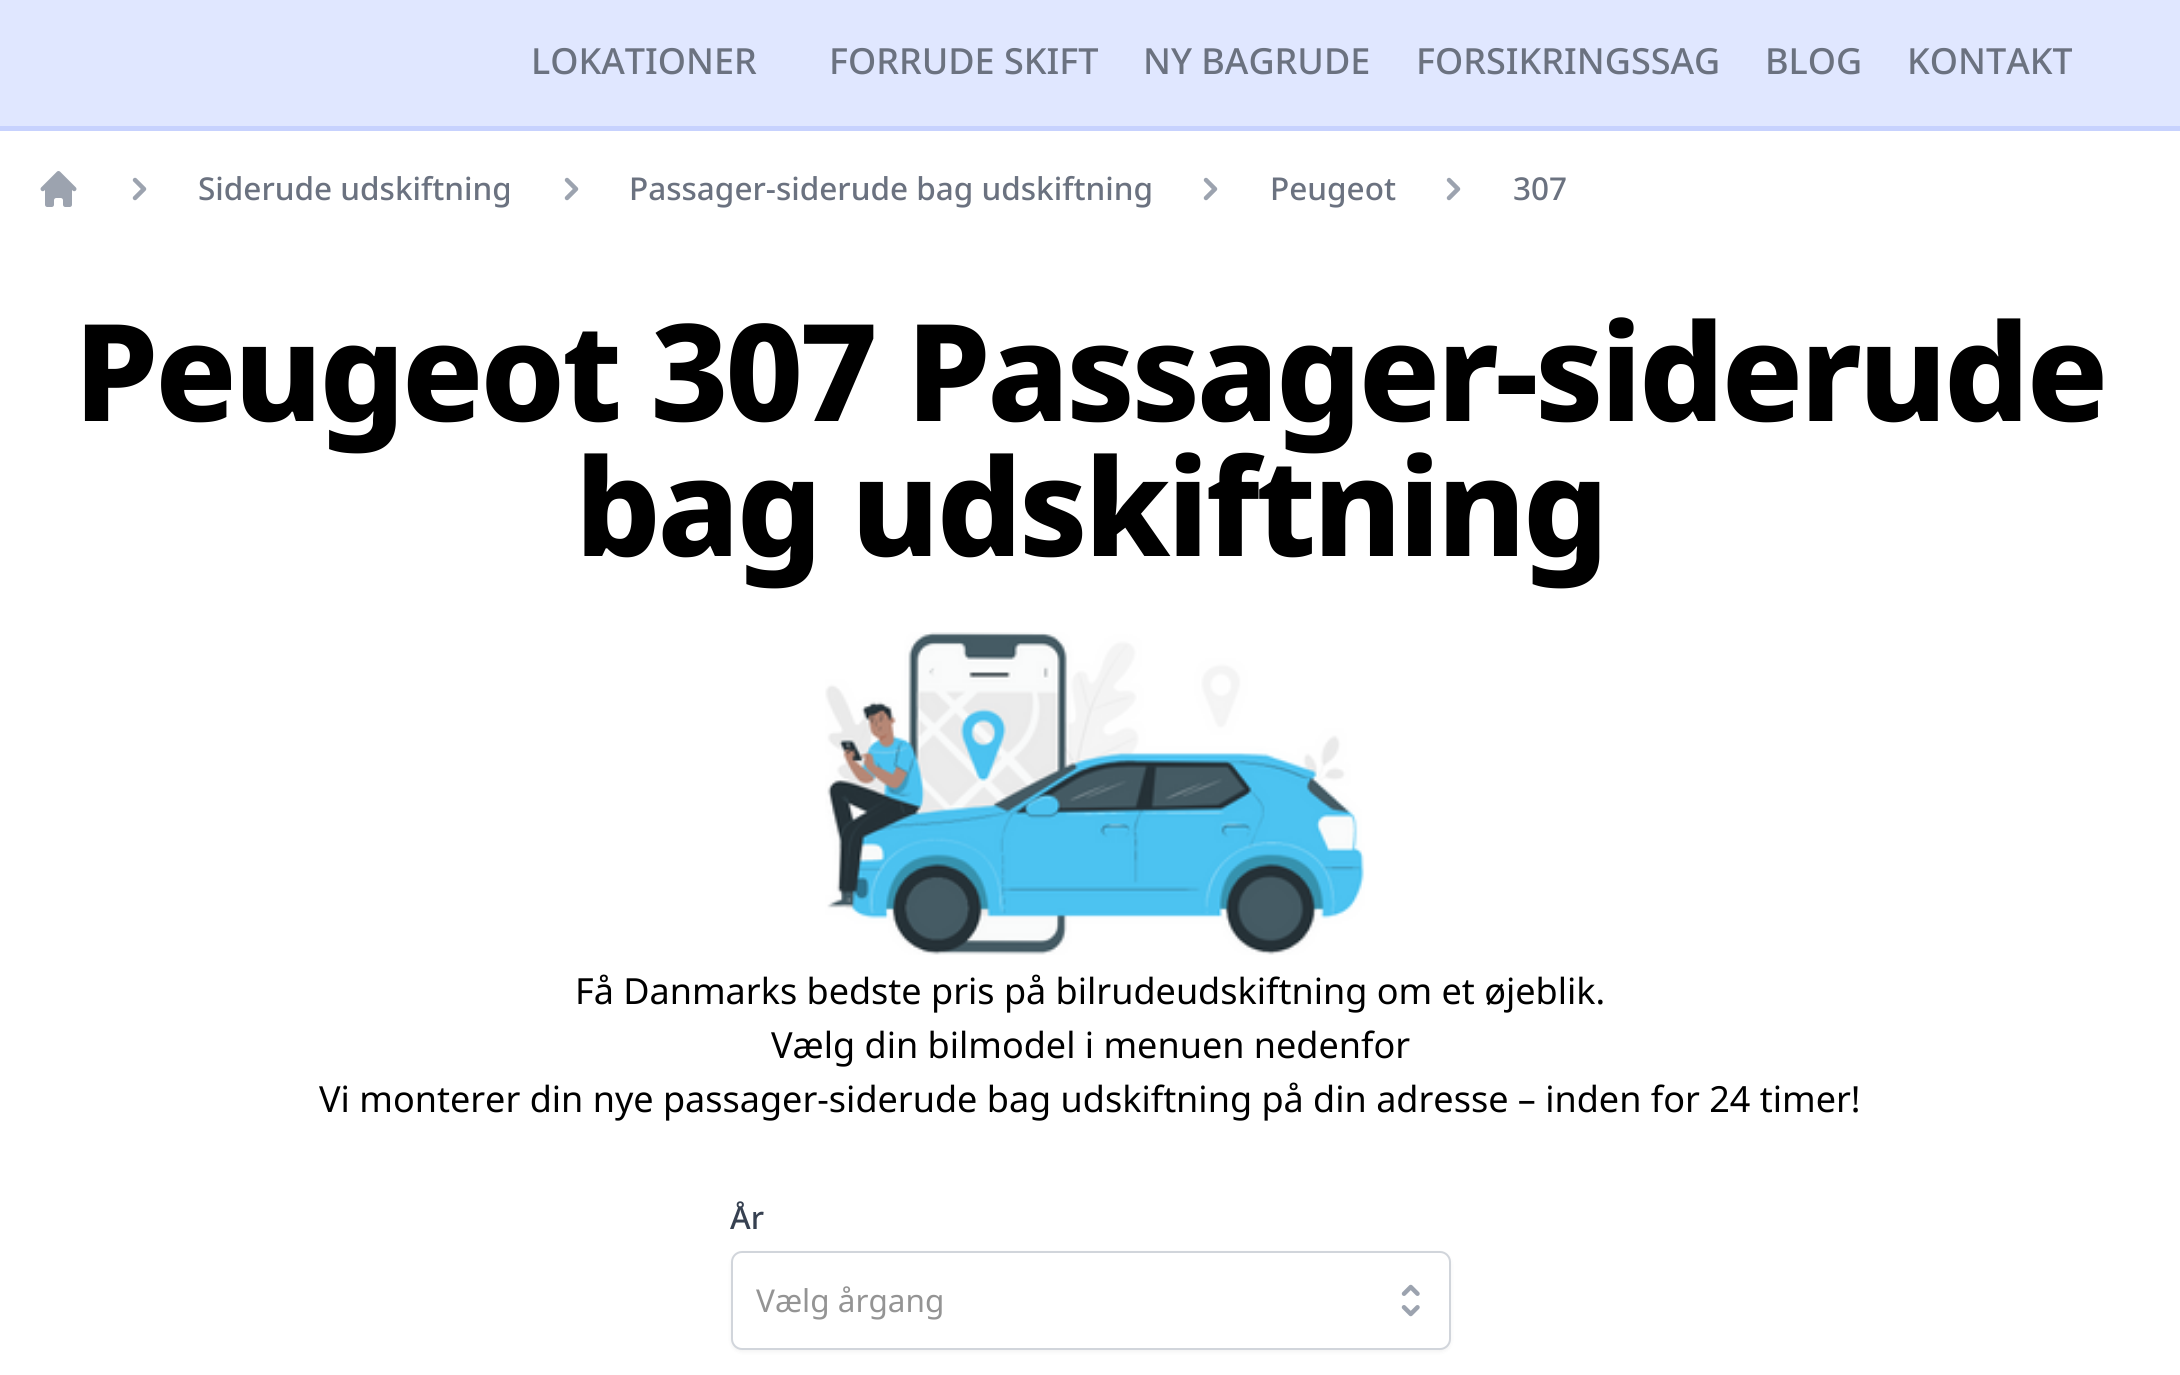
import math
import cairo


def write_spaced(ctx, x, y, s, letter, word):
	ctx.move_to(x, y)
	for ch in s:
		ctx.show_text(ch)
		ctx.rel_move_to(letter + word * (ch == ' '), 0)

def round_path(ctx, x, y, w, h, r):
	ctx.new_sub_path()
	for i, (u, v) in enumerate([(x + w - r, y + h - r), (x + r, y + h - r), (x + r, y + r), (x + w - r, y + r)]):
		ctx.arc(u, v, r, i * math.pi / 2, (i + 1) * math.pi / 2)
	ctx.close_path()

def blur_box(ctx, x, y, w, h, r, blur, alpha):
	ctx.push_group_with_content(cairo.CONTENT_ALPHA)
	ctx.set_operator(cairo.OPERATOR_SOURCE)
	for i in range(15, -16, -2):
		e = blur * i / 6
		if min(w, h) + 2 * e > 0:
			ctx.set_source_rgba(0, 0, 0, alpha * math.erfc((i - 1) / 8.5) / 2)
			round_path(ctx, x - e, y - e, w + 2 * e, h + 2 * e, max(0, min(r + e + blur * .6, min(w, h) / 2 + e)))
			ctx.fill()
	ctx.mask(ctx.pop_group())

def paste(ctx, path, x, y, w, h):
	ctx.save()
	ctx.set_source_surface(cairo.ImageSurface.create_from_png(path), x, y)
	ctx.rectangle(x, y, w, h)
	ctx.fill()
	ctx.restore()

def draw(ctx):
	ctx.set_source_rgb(1, 1, 1)
	ctx.paint()
	ctx.set_source_rgb(0.878, 0.906, 1)
	ctx.rectangle(0, 0, 2180, 126)
	ctx.fill()
	ctx.set_source_rgb(0.78, 0.824, 0.996)
	ctx.rectangle(0, 126, 2180, 5)
	ctx.fill()
	ctx.select_font_face('Noto Sans Medium')
	ctx.set_font_size(36)
	ctx.set_source_rgb(0.42, 0.447, 0.502)
	for x, y, s in [
		(531, 74, 'LOKATIONER'),
		(829, 74, 'FORRUDE SKIFT'),
		(1143, 74, 'NY BAGRUDE'),
		(1416, 74, 'FORSIKRINGSSAG'),
		(1765, 74, 'BLOG'),
		(1907, 74, 'KONTAKT'),
	]:
		ctx.move_to(x, y)
		ctx.show_text(s)
	paste(ctx, 'media/1.png', 40, 171, 37, 36)
	paste(ctx, 'media/2.png', 132, 177, 15, 24)
	ctx.set_font_size(31.5)
	ctx.move_to(198, 200)
	ctx.show_text('Siderude udskiftning')
	paste(ctx, 'media/2.png', 564, 177, 15, 24)
	ctx.move_to(629, 200)
	ctx.show_text('Passager-siderude bag udskiftning')
	paste(ctx, 'media/2.png', 1203, 177, 15, 24)
	ctx.move_to(1270, 200)
	ctx.show_text('Peugeot')
	paste(ctx, 'media/2.png', 1446, 177, 15, 24)
	ctx.move_to(1513, 200)
	ctx.show_text('307')
	ctx.select_font_face('Noto Sans ExtraBold')
	ctx.set_font_size(135)
	ctx.set_source_rgb(0, 0, 0)
	write_spaced(ctx, 74, 421, 'Peugeot 307 Passager-siderude', -3.4, 0)
	write_spaced(ctx, 575, 556, 'bag udskiftning', -3.4, 0)
	paste(ctx, 'media/3.png', 825, 632, 540, 323)
	ctx.select_font_face('Noto Sans')
	ctx.set_font_size(36)
	for x, y, s in [
		(575, 1004, 'Få Danmarks bedste pris på bilrudeudskiftning om et øjeblik.'),
		(771, 1058, 'Vælg din bilmodel i menuen nedenfor'),
		(319, 1112, 'Vi monterer din nye passager-siderude bag udskiftning på din adresse – inden for 24 timer!'),
	]:
		ctx.move_to(x, y)
		ctx.show_text(s)
	ctx.select_font_face('Noto Sans Medium')
	ctx.set_font_size(31.5)
	ctx.set_source_rgb(0.216, 0.255, 0.318)
	ctx.move_to(730, 1229)
	ctx.show_text('År')
	ctx.set_source_rgb(0, 0, 0)
	blur_box(ctx, 731, 1253, 720, 99, 11, 2, 0.05)
	ctx.set_source_rgb(1, 1, 1)
	round_path(ctx, 732, 1252, 718, 97, 10)
	ctx.fill_preserve()
	ctx.set_source_rgb(0.82, 0.835, 0.859)
	ctx.stroke()
	ctx.select_font_face('Noto Sans')
	ctx.set_source_rgb(0.58, 0.58, 0.58)
	ctx.move_to(756, 1312)
	ctx.show_text('Vælg årgang')
	paste(ctx, 'media/4.png', 1401, 1284, 19, 33)


surface = cairo.ImageSurface(cairo.FORMAT_RGB24, 2180, 1375)
ctx = cairo.Context(surface)
options = cairo.FontOptions()
options.set_hint_metrics(cairo.HINT_METRICS_OFF)
options.set_hint_style(cairo.HINT_STYLE_NONE)
ctx.set_font_options(options)
ctx.set_miter_limit(4)
draw(ctx)
surface.write_to_png('image.png')
